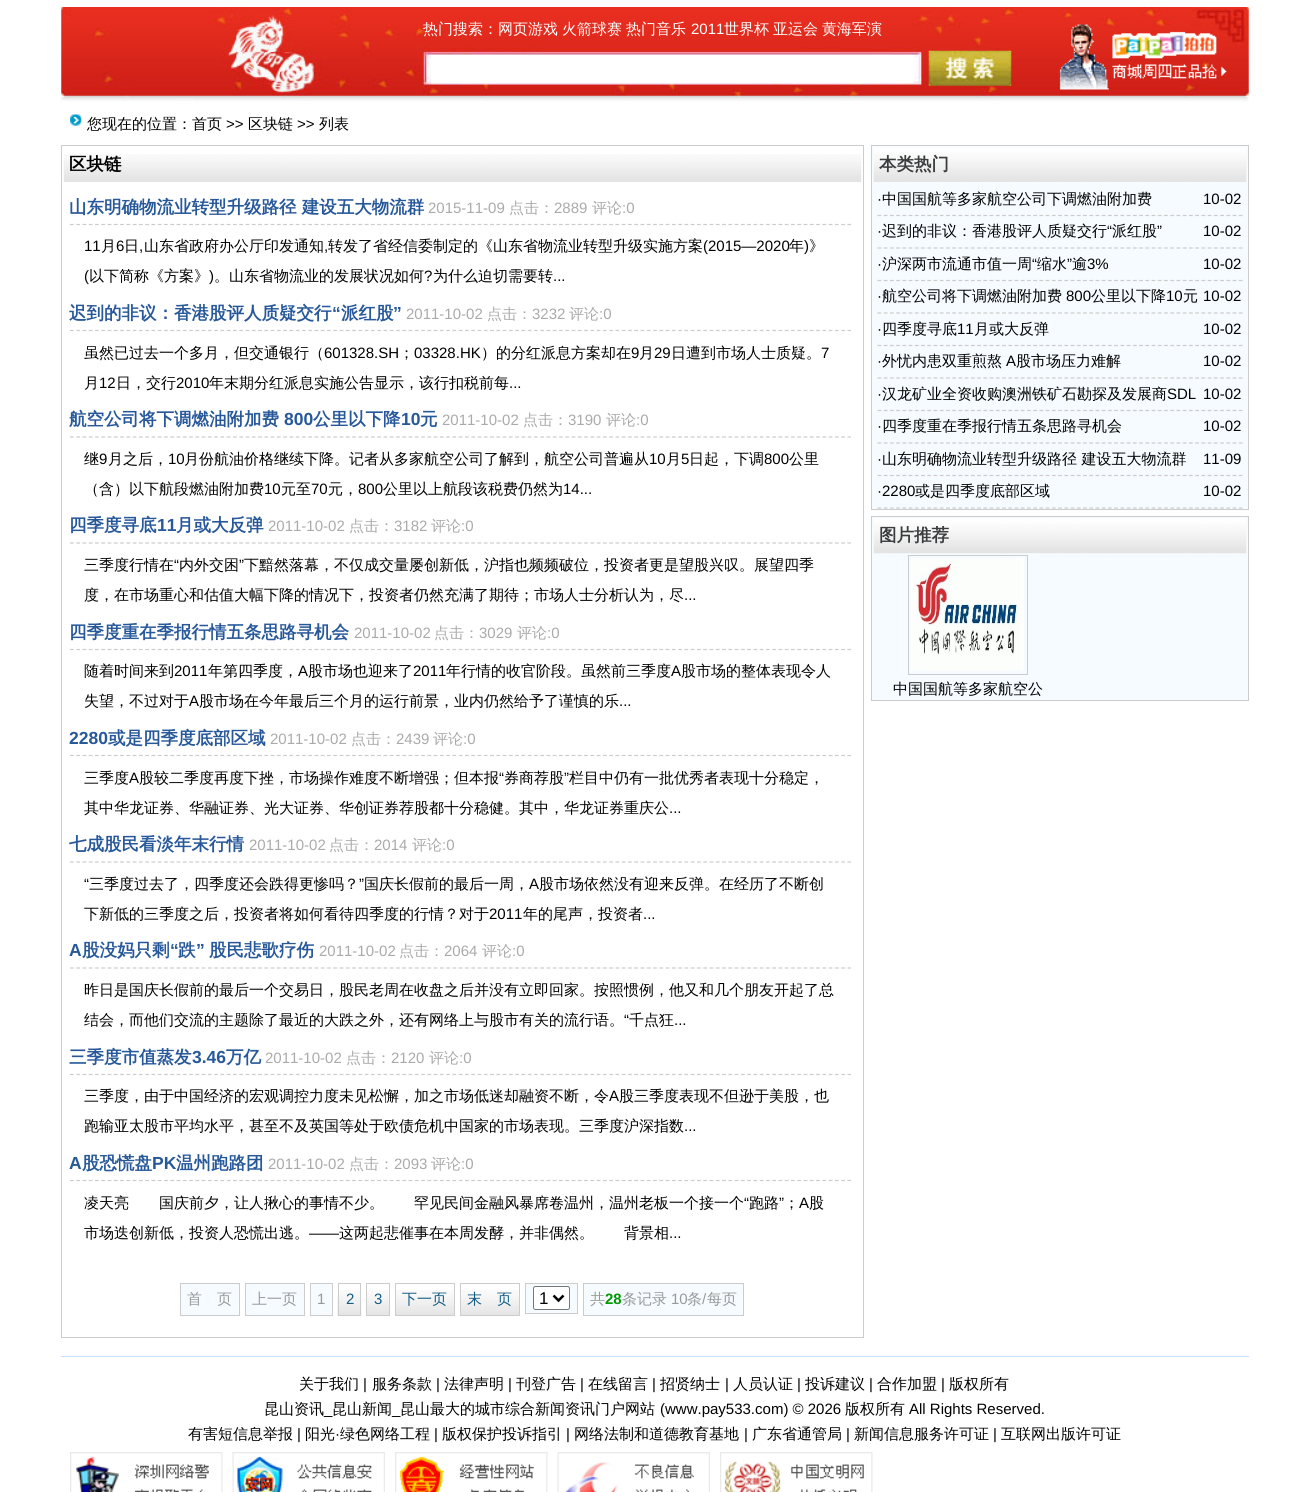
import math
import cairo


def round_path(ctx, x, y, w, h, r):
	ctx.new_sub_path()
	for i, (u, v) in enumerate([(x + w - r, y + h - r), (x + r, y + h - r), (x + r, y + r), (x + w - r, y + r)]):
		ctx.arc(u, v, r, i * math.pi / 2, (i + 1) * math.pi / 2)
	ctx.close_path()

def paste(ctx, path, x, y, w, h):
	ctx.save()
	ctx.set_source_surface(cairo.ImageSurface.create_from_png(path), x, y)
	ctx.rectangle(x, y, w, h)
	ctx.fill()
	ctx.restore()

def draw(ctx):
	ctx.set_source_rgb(1, 1, 1)
	ctx.paint()
	paste(ctx, 'media/1.png', 61, 7, 1188, 96)
	ctx.select_font_face('WenQuanYi Zen Hei Medium')
	ctx.set_font_size(15)
	ctx.set_source_rgb(1, 1, 1)
	for x, y, s in [
		(423, 34, '热门搜索：网页游戏'),
		(562, 34, '火箭球赛'),
		(626, 34, '热门音乐'),
	]:
		ctx.move_to(x, y)
		ctx.show_text(s)
	ctx.select_font_face('Liberation Sans')
	ctx.move_to(691, 34)
	ctx.show_text('2011')
	ctx.select_font_face('WenQuanYi Zen Hei Medium')
	for x, y, s in [
		(724, 34, '世界杯'),
		(773, 34, '亚运会'),
		(822, 34, '黄海军演'),
	]:
		ctx.move_to(x, y)
		ctx.show_text(s)
	paste(ctx, 'media/2.png', 1059, 24, 168, 66)
	ctx.rectangle(431, 55, 483, 28)
	ctx.fill()
	paste(ctx, 'media/3.png', 928, 50, 84, 36)
	paste(ctx, 'media/4.png', 70, 114, 12, 12)
	ctx.set_source_rgb(0, 0, 0)
	ctx.move_to(87, 129)
	ctx.show_text('您现在的位置：首页')
	ctx.select_font_face('Liberation Sans')
	ctx.move_to(226, 129)
	ctx.show_text('>>')
	ctx.select_font_face('WenQuanYi Zen Hei Medium')
	ctx.move_to(248, 129)
	ctx.show_text('区块链')
	ctx.select_font_face('Liberation Sans')
	ctx.move_to(297, 129)
	ctx.show_text('>>')
	ctx.select_font_face('WenQuanYi Zen Hei Medium')
	ctx.move_to(319, 129)
	ctx.show_text('列表')
	ctx.rectangle(61.5, 145.5, 802, 1192)
	ctx.set_source_rgb(0.8, 0.8, 0.8)
	ctx.set_line_width(1)
	ctx.stroke()
	paste(ctx, 'media/5.png', 63, 154, 799, 28)
	ctx.select_font_face('WenQuanYi Zen Hei', cairo.FONT_SLANT_NORMAL, cairo.FONT_WEIGHT_BOLD)
	ctx.set_font_size(17.5)
	ctx.set_source_rgb(0, 0, 0)
	ctx.move_to(69, 170)
	ctx.show_text('区块链')
	ctx.new_path()
	ctx.move_to(70, 224.5)
	ctx.line_to(851, 224.5)
	ctx.set_source_rgb(0.8, 0.8, 0.8)
	ctx.set_line_width(1.2)
	ctx.set_dash([3.75, 2.52])
	ctx.stroke()
	ctx.set_source_rgb(0.153, 0.345, 0.604)
	ctx.move_to(69, 213)
	ctx.show_text('山东明确物流业转型升级路径 建设五大物流群')
	ctx.select_font_face('Liberation Sans')
	ctx.set_font_size(15)
	ctx.set_source_rgb(0.667, 0.667, 0.667)
	ctx.move_to(428, 213)
	ctx.show_text('2015-11-09')
	ctx.select_font_face('WenQuanYi Zen Hei Medium')
	ctx.move_to(509, 213)
	ctx.show_text('点击：')
	ctx.select_font_face('Liberation Sans')
	ctx.move_to(554, 213)
	ctx.show_text('2889')
	ctx.select_font_face('WenQuanYi Zen Hei Medium')
	ctx.move_to(592, 213)
	ctx.show_text('评论')
	ctx.select_font_face('Liberation Sans')
	ctx.move_to(622, 213)
	ctx.show_text(':0')
	ctx.set_source_rgb(0, 0, 0)
	ctx.move_to(84, 251)
	ctx.show_text('11')
	ctx.select_font_face('WenQuanYi Zen Hei Medium')
	ctx.move_to(101, 251)
	ctx.show_text('月')
	ctx.select_font_face('Liberation Sans')
	ctx.move_to(116, 251)
	ctx.show_text('6')
	ctx.select_font_face('WenQuanYi Zen Hei Medium')
	ctx.move_to(124, 251)
	ctx.show_text('日')
	ctx.select_font_face('Liberation Sans')
	ctx.move_to(139, 251)
	ctx.show_text(',')
	ctx.select_font_face('WenQuanYi Zen Hei Medium')
	ctx.move_to(144, 251)
	ctx.show_text('山东省政府办公厅印发通知')
	ctx.select_font_face('Liberation Sans')
	ctx.move_to(324, 251)
	ctx.show_text(',')
	ctx.select_font_face('WenQuanYi Zen Hei Medium')
	ctx.move_to(328, 251)
	ctx.show_text('转发了省经信委制定的《山东省物流业转型升级实施方案')
	ctx.select_font_face('Liberation Sans')
	ctx.move_to(703, 251)
	ctx.show_text('(2015—2020')
	ctx.select_font_face('WenQuanYi Zen Hei Medium')
	ctx.move_to(789, 251)
	ctx.show_text('年')
	ctx.select_font_face('Liberation Sans')
	ctx.move_to(804, 251)
	ctx.show_text(')')
	ctx.select_font_face('WenQuanYi Zen Hei Medium')
	ctx.move_to(809, 251)
	ctx.show_text('》')
	ctx.select_font_face('Liberation Sans')
	ctx.move_to(84, 281)
	ctx.show_text('(')
	ctx.select_font_face('WenQuanYi Zen Hei Medium')
	ctx.move_to(89, 281)
	ctx.show_text('以下简称《方案》')
	ctx.select_font_face('Liberation Sans')
	ctx.move_to(209, 281)
	ctx.show_text(')')
	ctx.select_font_face('WenQuanYi Zen Hei Medium')
	ctx.move_to(214, 281)
	ctx.show_text('。山东省物流业的发展状况如何')
	ctx.select_font_face('Liberation Sans')
	ctx.move_to(424, 281)
	ctx.show_text('?')
	ctx.select_font_face('WenQuanYi Zen Hei Medium')
	ctx.move_to(433, 281)
	ctx.show_text('为什么迫切需要转')
	ctx.select_font_face('Liberation Sans')
	ctx.move_to(553, 281)
	ctx.show_text('...')
	ctx.new_path()
	ctx.move_to(70, 330.5)
	ctx.line_to(851, 330.5)
	ctx.set_source_rgb(0.8, 0.8, 0.8)
	ctx.stroke()
	ctx.select_font_face('WenQuanYi Zen Hei', cairo.FONT_SLANT_NORMAL, cairo.FONT_WEIGHT_BOLD)
	ctx.set_font_size(17.5)
	ctx.set_source_rgb(0.153, 0.345, 0.604)
	ctx.move_to(69, 319)
	ctx.show_text('迟到的非议：香港股评人质疑交行')
	ctx.select_font_face('Liberation Sans', cairo.FONT_SLANT_NORMAL, cairo.FONT_WEIGHT_BOLD)
	ctx.move_to(332, 319)
	ctx.show_text('“')
	ctx.select_font_face('WenQuanYi Zen Hei', cairo.FONT_SLANT_NORMAL, cairo.FONT_WEIGHT_BOLD)
	ctx.move_to(341, 319)
	ctx.show_text('派红股')
	ctx.select_font_face('Liberation Sans', cairo.FONT_SLANT_NORMAL, cairo.FONT_WEIGHT_BOLD)
	ctx.move_to(393, 319)
	ctx.show_text('”')
	ctx.select_font_face('Liberation Sans')
	ctx.set_font_size(15)
	ctx.set_source_rgb(0.667, 0.667, 0.667)
	ctx.move_to(406, 319)
	ctx.show_text('2011-10-02')
	ctx.select_font_face('WenQuanYi Zen Hei Medium')
	ctx.move_to(487, 319)
	ctx.show_text('点击：')
	ctx.select_font_face('Liberation Sans')
	ctx.move_to(532, 319)
	ctx.show_text('3232')
	ctx.select_font_face('WenQuanYi Zen Hei Medium')
	ctx.move_to(569, 319)
	ctx.show_text('评论')
	ctx.select_font_face('Liberation Sans')
	ctx.move_to(599, 319)
	ctx.show_text(':0')
	ctx.select_font_face('WenQuanYi Zen Hei Medium')
	ctx.set_source_rgb(0, 0, 0)
	ctx.move_to(84, 358)
	ctx.show_text('虽然已过去一个多月，但交通银行（')
	ctx.select_font_face('Liberation Sans')
	ctx.move_to(324, 358)
	ctx.show_text('601328.SH')
	ctx.select_font_face('WenQuanYi Zen Hei Medium')
	ctx.move_to(399, 358)
	ctx.show_text('；')
	ctx.select_font_face('Liberation Sans')
	ctx.move_to(414, 358)
	ctx.show_text('03328.HK')
	ctx.select_font_face('WenQuanYi Zen Hei Medium')
	ctx.move_to(481, 358)
	ctx.show_text('）的分红派息方案却在')
	ctx.select_font_face('Liberation Sans')
	ctx.move_to(631, 358)
	ctx.show_text('9')
	ctx.select_font_face('WenQuanYi Zen Hei Medium')
	ctx.move_to(639, 358)
	ctx.show_text('月')
	ctx.select_font_face('Liberation Sans')
	ctx.move_to(654, 358)
	ctx.show_text('29')
	ctx.select_font_face('WenQuanYi Zen Hei Medium')
	ctx.move_to(671, 358)
	ctx.show_text('日遭到市场人士质疑。')
	ctx.select_font_face('Liberation Sans')
	ctx.move_to(821, 358)
	ctx.show_text('7')
	ctx.select_font_face('WenQuanYi Zen Hei Medium')
	ctx.move_to(84, 388)
	ctx.show_text('月')
	ctx.select_font_face('Liberation Sans')
	ctx.move_to(99, 388)
	ctx.show_text('12')
	ctx.select_font_face('WenQuanYi Zen Hei Medium')
	ctx.move_to(116, 388)
	ctx.show_text('日，交行')
	ctx.select_font_face('Liberation Sans')
	ctx.move_to(176, 388)
	ctx.show_text('2010')
	ctx.select_font_face('WenQuanYi Zen Hei Medium')
	ctx.move_to(209, 388)
	ctx.show_text('年末期分红派息实施公告显示，该行扣税前每')
	ctx.select_font_face('Liberation Sans')
	ctx.move_to(509, 388)
	ctx.show_text('...')
	ctx.new_path()
	ctx.move_to(70, 437)
	ctx.line_to(851, 437)
	ctx.set_source_rgb(0.8, 0.8, 0.8)
	ctx.stroke()
	ctx.select_font_face('WenQuanYi Zen Hei', cairo.FONT_SLANT_NORMAL, cairo.FONT_WEIGHT_BOLD)
	ctx.set_font_size(17.5)
	ctx.set_source_rgb(0.153, 0.345, 0.604)
	ctx.move_to(69, 425)
	ctx.show_text('航空公司将下调燃油附加费')
	ctx.select_font_face('Liberation Sans', cairo.FONT_SLANT_NORMAL, cairo.FONT_WEIGHT_BOLD)
	ctx.move_to(284, 425)
	ctx.show_text('800')
	ctx.select_font_face('WenQuanYi Zen Hei', cairo.FONT_SLANT_NORMAL, cairo.FONT_WEIGHT_BOLD)
	ctx.move_to(313, 425)
	ctx.show_text('公里以下降')
	ctx.select_font_face('Liberation Sans', cairo.FONT_SLANT_NORMAL, cairo.FONT_WEIGHT_BOLD)
	ctx.move_to(401, 425)
	ctx.show_text('10')
	ctx.select_font_face('WenQuanYi Zen Hei', cairo.FONT_SLANT_NORMAL, cairo.FONT_WEIGHT_BOLD)
	ctx.move_to(420, 425)
	ctx.show_text('元')
	ctx.select_font_face('Liberation Sans')
	ctx.set_font_size(15)
	ctx.set_source_rgb(0.667, 0.667, 0.667)
	ctx.move_to(442, 425)
	ctx.show_text('2011-10-02')
	ctx.select_font_face('WenQuanYi Zen Hei Medium')
	ctx.move_to(523, 425)
	ctx.show_text('点击：')
	ctx.select_font_face('Liberation Sans')
	ctx.move_to(568, 425)
	ctx.show_text('3190')
	ctx.select_font_face('WenQuanYi Zen Hei Medium')
	ctx.move_to(606, 425)
	ctx.show_text('评论')
	ctx.select_font_face('Liberation Sans')
	ctx.move_to(636, 425)
	ctx.show_text(':0')
	ctx.select_font_face('WenQuanYi Zen Hei Medium')
	ctx.set_source_rgb(0, 0, 0)
	ctx.move_to(84, 464)
	ctx.show_text('继')
	ctx.select_font_face('Liberation Sans')
	ctx.move_to(99, 464)
	ctx.show_text('9')
	ctx.select_font_face('WenQuanYi Zen Hei Medium')
	ctx.move_to(108, 464)
	ctx.show_text('月之后，')
	ctx.select_font_face('Liberation Sans')
	ctx.move_to(168, 464)
	ctx.show_text('10')
	ctx.select_font_face('WenQuanYi Zen Hei Medium')
	ctx.move_to(184, 464)
	ctx.show_text('月份航油价格继续下降。记者从多家航空公司了解到，航空公司普遍从')
	ctx.select_font_face('Liberation Sans')
	ctx.move_to(649, 464)
	ctx.show_text('10')
	ctx.select_font_face('WenQuanYi Zen Hei Medium')
	ctx.move_to(666, 464)
	ctx.show_text('月')
	ctx.select_font_face('Liberation Sans')
	ctx.move_to(681, 464)
	ctx.show_text('5')
	ctx.select_font_face('WenQuanYi Zen Hei Medium')
	ctx.move_to(689, 464)
	ctx.show_text('日起，下调')
	ctx.select_font_face('Liberation Sans')
	ctx.move_to(764, 464)
	ctx.show_text('800')
	ctx.select_font_face('WenQuanYi Zen Hei Medium')
	ctx.move_to(789, 464)
	ctx.show_text('公里')
	ctx.move_to(84, 494)
	ctx.show_text('（含）以下航段燃油附加费')
	ctx.select_font_face('Liberation Sans')
	ctx.move_to(264, 494)
	ctx.show_text('10')
	ctx.select_font_face('WenQuanYi Zen Hei Medium')
	ctx.move_to(281, 494)
	ctx.show_text('元至')
	ctx.select_font_face('Liberation Sans')
	ctx.move_to(311, 494)
	ctx.show_text('70')
	ctx.select_font_face('WenQuanYi Zen Hei Medium')
	ctx.move_to(328, 494)
	ctx.show_text('元，')
	ctx.select_font_face('Liberation Sans')
	ctx.move_to(358, 494)
	ctx.show_text('800')
	ctx.select_font_face('WenQuanYi Zen Hei Medium')
	ctx.move_to(383, 494)
	ctx.show_text('公里以上航段该税费仍然为')
	ctx.select_font_face('Liberation Sans')
	ctx.move_to(563, 494)
	ctx.show_text('14...')
	ctx.new_path()
	ctx.move_to(70, 543)
	ctx.line_to(851, 543)
	ctx.set_source_rgb(0.8, 0.8, 0.8)
	ctx.stroke()
	ctx.select_font_face('WenQuanYi Zen Hei', cairo.FONT_SLANT_NORMAL, cairo.FONT_WEIGHT_BOLD)
	ctx.set_font_size(17.5)
	ctx.set_source_rgb(0.153, 0.345, 0.604)
	ctx.move_to(69, 531)
	ctx.show_text('四季度寻底')
	ctx.select_font_face('Liberation Sans', cairo.FONT_SLANT_NORMAL, cairo.FONT_WEIGHT_BOLD)
	ctx.move_to(157, 531)
	ctx.show_text('11')
	ctx.select_font_face('WenQuanYi Zen Hei', cairo.FONT_SLANT_NORMAL, cairo.FONT_WEIGHT_BOLD)
	ctx.move_to(176, 531)
	ctx.show_text('月或大反弹')
	ctx.select_font_face('Liberation Sans')
	ctx.set_font_size(15)
	ctx.set_source_rgb(0.667, 0.667, 0.667)
	ctx.move_to(268, 531)
	ctx.show_text('2011-10-02')
	ctx.select_font_face('WenQuanYi Zen Hei Medium')
	ctx.move_to(349, 531)
	ctx.show_text('点击：')
	ctx.select_font_face('Liberation Sans')
	ctx.move_to(394, 531)
	ctx.show_text('3182')
	ctx.select_font_face('WenQuanYi Zen Hei Medium')
	ctx.move_to(431, 531)
	ctx.show_text('评论')
	ctx.select_font_face('Liberation Sans')
	ctx.move_to(461, 531)
	ctx.show_text(':0')
	ctx.select_font_face('WenQuanYi Zen Hei Medium')
	ctx.set_source_rgb(0, 0, 0)
	ctx.move_to(84, 570)
	ctx.show_text('三季度行情在')
	ctx.select_font_face('Liberation Sans')
	ctx.move_to(174, 570)
	ctx.show_text('“')
	ctx.select_font_face('WenQuanYi Zen Hei Medium')
	ctx.move_to(179, 570)
	ctx.show_text('内外交困')
	ctx.select_font_face('Liberation Sans')
	ctx.move_to(239, 570)
	ctx.show_text('”')
	ctx.select_font_face('WenQuanYi Zen Hei Medium')
	ctx.move_to(244, 570)
	ctx.show_text('下黯然落幕，不仅成交量屡创新低，沪指也频频破位，投资者更是望股兴叹。展望四季')
	ctx.move_to(84, 600)
	ctx.show_text('度，在市场重心和估值大幅下降的情况下，投资者仍然充满了期待；市场人士分析认为，尽')
	ctx.select_font_face('Liberation Sans')
	ctx.move_to(684, 600)
	ctx.show_text('...')
	ctx.new_path()
	ctx.move_to(70, 649.5)
	ctx.line_to(851, 649.5)
	ctx.set_source_rgb(0.8, 0.8, 0.8)
	ctx.stroke()
	ctx.select_font_face('WenQuanYi Zen Hei', cairo.FONT_SLANT_NORMAL, cairo.FONT_WEIGHT_BOLD)
	ctx.set_font_size(17.5)
	ctx.set_source_rgb(0.153, 0.345, 0.604)
	ctx.move_to(69, 638)
	ctx.show_text('四季度重在季报行情五条思路寻机会')
	ctx.select_font_face('Liberation Sans')
	ctx.set_font_size(15)
	ctx.set_source_rgb(0.667, 0.667, 0.667)
	ctx.move_to(354, 638)
	ctx.show_text('2011-10-02')
	ctx.select_font_face('WenQuanYi Zen Hei Medium')
	ctx.move_to(434, 638)
	ctx.show_text('点击：')
	ctx.select_font_face('Liberation Sans')
	ctx.move_to(479, 638)
	ctx.show_text('3029')
	ctx.select_font_face('WenQuanYi Zen Hei Medium')
	ctx.move_to(517, 638)
	ctx.show_text('评论')
	ctx.select_font_face('Liberation Sans')
	ctx.move_to(547, 638)
	ctx.show_text(':0')
	ctx.select_font_face('WenQuanYi Zen Hei Medium')
	ctx.set_source_rgb(0, 0, 0)
	ctx.move_to(84, 676)
	ctx.show_text('随着时间来到')
	ctx.select_font_face('Liberation Sans')
	ctx.move_to(174, 676)
	ctx.show_text('2011')
	ctx.select_font_face('WenQuanYi Zen Hei Medium')
	ctx.move_to(208, 676)
	ctx.show_text('年第四季度，')
	ctx.select_font_face('Liberation Sans')
	ctx.move_to(298, 676)
	ctx.show_text('A')
	ctx.select_font_face('WenQuanYi Zen Hei Medium')
	ctx.move_to(308, 676)
	ctx.show_text('股市场也迎来了')
	ctx.select_font_face('Liberation Sans')
	ctx.move_to(413, 676)
	ctx.show_text('2011')
	ctx.select_font_face('WenQuanYi Zen Hei Medium')
	ctx.move_to(446, 676)
	ctx.show_text('年行情的收官阶段。虽然前三季度')
	ctx.select_font_face('Liberation Sans')
	ctx.move_to(671, 676)
	ctx.show_text('A')
	ctx.select_font_face('WenQuanYi Zen Hei Medium')
	ctx.move_to(681, 676)
	ctx.show_text('股市场的整体表现令人')
	ctx.move_to(84, 706)
	ctx.show_text('失望，不过对于')
	ctx.select_font_face('Liberation Sans')
	ctx.move_to(189, 706)
	ctx.show_text('A')
	ctx.select_font_face('WenQuanYi Zen Hei Medium')
	ctx.move_to(199, 706)
	ctx.show_text('股市场在今年最后三个月的运行前景，业内仍然给予了谨慎的乐')
	ctx.select_font_face('Liberation Sans')
	ctx.move_to(619, 706)
	ctx.show_text('...')
	ctx.new_path()
	ctx.move_to(70, 755.5)
	ctx.line_to(851, 755.5)
	ctx.set_source_rgb(0.8, 0.8, 0.8)
	ctx.stroke()
	ctx.select_font_face('Liberation Sans', cairo.FONT_SLANT_NORMAL, cairo.FONT_WEIGHT_BOLD)
	ctx.set_font_size(17.5)
	ctx.set_source_rgb(0.153, 0.345, 0.604)
	ctx.move_to(69, 744)
	ctx.show_text('2280')
	ctx.select_font_face('WenQuanYi Zen Hei', cairo.FONT_SLANT_NORMAL, cairo.FONT_WEIGHT_BOLD)
	ctx.move_to(108, 744)
	ctx.show_text('或是四季度底部区域')
	ctx.select_font_face('Liberation Sans')
	ctx.set_font_size(15)
	ctx.set_source_rgb(0.667, 0.667, 0.667)
	ctx.move_to(270, 744)
	ctx.show_text('2011-10-02')
	ctx.select_font_face('WenQuanYi Zen Hei Medium')
	ctx.move_to(351, 744)
	ctx.show_text('点击：')
	ctx.select_font_face('Liberation Sans')
	ctx.move_to(396, 744)
	ctx.show_text('2439')
	ctx.select_font_face('WenQuanYi Zen Hei Medium')
	ctx.move_to(433, 744)
	ctx.show_text('评论')
	ctx.select_font_face('Liberation Sans')
	ctx.move_to(463, 744)
	ctx.show_text(':0')
	ctx.select_font_face('WenQuanYi Zen Hei Medium')
	ctx.set_source_rgb(0, 0, 0)
	ctx.move_to(84, 783)
	ctx.show_text('三季度')
	ctx.select_font_face('Liberation Sans')
	ctx.move_to(129, 783)
	ctx.show_text('A')
	ctx.select_font_face('WenQuanYi Zen Hei Medium')
	ctx.move_to(139, 783)
	ctx.show_text('股较二季度再度下挫，市场操作难度不断增强；但本报')
	ctx.select_font_face('Liberation Sans')
	ctx.move_to(499, 783)
	ctx.show_text('“')
	ctx.select_font_face('WenQuanYi Zen Hei Medium')
	ctx.move_to(504, 783)
	ctx.show_text('券商荐股')
	ctx.select_font_face('Liberation Sans')
	ctx.move_to(564, 783)
	ctx.show_text('”')
	ctx.select_font_face('WenQuanYi Zen Hei Medium')
	ctx.move_to(569, 783)
	ctx.show_text('栏目中仍有一批优秀者表现十分稳定，')
	ctx.move_to(84, 813)
	ctx.show_text('其中华龙证券、华融证券、光大证券、华创证券荐股都十分稳健。其中，华龙证券重庆公')
	ctx.select_font_face('Liberation Sans')
	ctx.move_to(669, 813)
	ctx.show_text('...')
	ctx.new_path()
	ctx.move_to(70, 862)
	ctx.line_to(851, 862)
	ctx.set_source_rgb(0.8, 0.8, 0.8)
	ctx.stroke()
	ctx.select_font_face('WenQuanYi Zen Hei', cairo.FONT_SLANT_NORMAL, cairo.FONT_WEIGHT_BOLD)
	ctx.set_font_size(17.5)
	ctx.set_source_rgb(0.153, 0.345, 0.604)
	ctx.move_to(69, 850)
	ctx.show_text('七成股民看淡年末行情')
	ctx.select_font_face('Liberation Sans')
	ctx.set_font_size(15)
	ctx.set_source_rgb(0.667, 0.667, 0.667)
	ctx.move_to(249, 850)
	ctx.show_text('2011-10-02')
	ctx.select_font_face('WenQuanYi Zen Hei Medium')
	ctx.move_to(329, 850)
	ctx.show_text('点击：')
	ctx.select_font_face('Liberation Sans')
	ctx.move_to(374, 850)
	ctx.show_text('2014')
	ctx.select_font_face('WenQuanYi Zen Hei Medium')
	ctx.move_to(412, 850)
	ctx.show_text('评论')
	ctx.select_font_face('Liberation Sans')
	ctx.move_to(442, 850)
	ctx.show_text(':0')
	ctx.set_source_rgb(0, 0, 0)
	ctx.move_to(84, 889)
	ctx.show_text('“')
	ctx.select_font_face('WenQuanYi Zen Hei Medium')
	ctx.move_to(89, 889)
	ctx.show_text('三季度过去了，四季度还会跌得更惨吗？')
	ctx.select_font_face('Liberation Sans')
	ctx.move_to(359, 889)
	ctx.show_text('”')
	ctx.select_font_face('WenQuanYi Zen Hei Medium')
	ctx.move_to(364, 889)
	ctx.show_text('国庆长假前的最后一周，')
	ctx.select_font_face('Liberation Sans')
	ctx.move_to(529, 889)
	ctx.show_text('A')
	ctx.select_font_face('WenQuanYi Zen Hei Medium')
	ctx.move_to(539, 889)
	ctx.show_text('股市场依然没有迎来反弹。在经历了不断创')
	ctx.move_to(84, 919)
	ctx.show_text('下新低的三季度之后，投资者将如何看待四季度的行情？对于')
	ctx.select_font_face('Liberation Sans')
	ctx.move_to(489, 919)
	ctx.show_text('2011')
	ctx.select_font_face('WenQuanYi Zen Hei Medium')
	ctx.move_to(523, 919)
	ctx.show_text('年的尾声，投资者')
	ctx.select_font_face('Liberation Sans')
	ctx.move_to(643, 919)
	ctx.show_text('...')
	ctx.new_path()
	ctx.move_to(70, 968)
	ctx.line_to(851, 968)
	ctx.set_source_rgb(0.8, 0.8, 0.8)
	ctx.stroke()
	ctx.select_font_face('Liberation Sans', cairo.FONT_SLANT_NORMAL, cairo.FONT_WEIGHT_BOLD)
	ctx.set_font_size(17.5)
	ctx.set_source_rgb(0.153, 0.345, 0.604)
	ctx.move_to(69, 956)
	ctx.show_text('A')
	ctx.select_font_face('WenQuanYi Zen Hei', cairo.FONT_SLANT_NORMAL, cairo.FONT_WEIGHT_BOLD)
	ctx.move_to(82, 956)
	ctx.show_text('股没妈只剩')
	ctx.select_font_face('Liberation Sans', cairo.FONT_SLANT_NORMAL, cairo.FONT_WEIGHT_BOLD)
	ctx.move_to(170, 956)
	ctx.show_text('“')
	ctx.select_font_face('WenQuanYi Zen Hei', cairo.FONT_SLANT_NORMAL, cairo.FONT_WEIGHT_BOLD)
	ctx.move_to(178, 956)
	ctx.show_text('跌')
	ctx.select_font_face('Liberation Sans', cairo.FONT_SLANT_NORMAL, cairo.FONT_WEIGHT_BOLD)
	ctx.move_to(196, 956)
	ctx.show_text('”')
	ctx.select_font_face('WenQuanYi Zen Hei', cairo.FONT_SLANT_NORMAL, cairo.FONT_WEIGHT_BOLD)
	ctx.move_to(209, 956)
	ctx.show_text('股民悲歌疗伤')
	ctx.select_font_face('Liberation Sans')
	ctx.set_font_size(15)
	ctx.set_source_rgb(0.667, 0.667, 0.667)
	ctx.move_to(319, 956)
	ctx.show_text('2011-10-02')
	ctx.select_font_face('WenQuanYi Zen Hei Medium')
	ctx.move_to(399, 956)
	ctx.show_text('点击：')
	ctx.select_font_face('Liberation Sans')
	ctx.move_to(444, 956)
	ctx.show_text('2064')
	ctx.select_font_face('WenQuanYi Zen Hei Medium')
	ctx.move_to(482, 956)
	ctx.show_text('评论')
	ctx.select_font_face('Liberation Sans')
	ctx.move_to(512, 956)
	ctx.show_text(':0')
	ctx.select_font_face('WenQuanYi Zen Hei Medium')
	ctx.set_source_rgb(0, 0, 0)
	ctx.move_to(84, 995)
	ctx.show_text('昨日是国庆长假前的最后一个交易日，股民老周在收盘之后并没有立即回家。按照惯例，他又和几个朋友开起了总')
	ctx.move_to(84, 1025)
	ctx.show_text('结会，而他们交流的主题除了最近的大跌之外，还有网络上与股市有关的流行语。')
	ctx.select_font_face('Liberation Sans')
	ctx.move_to(624, 1025)
	ctx.show_text('“')
	ctx.select_font_face('WenQuanYi Zen Hei Medium')
	ctx.move_to(629, 1025)
	ctx.show_text('千点狂')
	ctx.select_font_face('Liberation Sans')
	ctx.move_to(674, 1025)
	ctx.show_text('...')
	ctx.new_path()
	ctx.move_to(70, 1074.5)
	ctx.line_to(851, 1074.5)
	ctx.set_source_rgb(0.8, 0.8, 0.8)
	ctx.stroke()
	ctx.select_font_face('WenQuanYi Zen Hei', cairo.FONT_SLANT_NORMAL, cairo.FONT_WEIGHT_BOLD)
	ctx.set_font_size(17.5)
	ctx.set_source_rgb(0.153, 0.345, 0.604)
	ctx.move_to(69, 1063)
	ctx.show_text('三季度市值蒸发')
	ctx.select_font_face('Liberation Sans', cairo.FONT_SLANT_NORMAL, cairo.FONT_WEIGHT_BOLD)
	ctx.move_to(192, 1063)
	ctx.show_text('3.46')
	ctx.select_font_face('WenQuanYi Zen Hei', cairo.FONT_SLANT_NORMAL, cairo.FONT_WEIGHT_BOLD)
	ctx.move_to(226, 1063)
	ctx.show_text('万亿')
	ctx.select_font_face('Liberation Sans')
	ctx.set_font_size(15)
	ctx.set_source_rgb(0.667, 0.667, 0.667)
	ctx.move_to(265, 1063)
	ctx.show_text('2011-10-02')
	ctx.select_font_face('WenQuanYi Zen Hei Medium')
	ctx.move_to(346, 1063)
	ctx.show_text('点击：')
	ctx.select_font_face('Liberation Sans')
	ctx.move_to(391, 1063)
	ctx.show_text('2120')
	ctx.select_font_face('WenQuanYi Zen Hei Medium')
	ctx.move_to(429, 1063)
	ctx.show_text('评论')
	ctx.select_font_face('Liberation Sans')
	ctx.move_to(459, 1063)
	ctx.show_text(':0')
	ctx.select_font_face('WenQuanYi Zen Hei Medium')
	ctx.set_source_rgb(0, 0, 0)
	ctx.move_to(84, 1101)
	ctx.show_text('三季度，由于中国经济的宏观调控力度未见松懈，加之市场低迷却融资不断，令')
	ctx.select_font_face('Liberation Sans')
	ctx.move_to(609, 1101)
	ctx.show_text('A')
	ctx.select_font_face('WenQuanYi Zen Hei Medium')
	ctx.move_to(619, 1101)
	ctx.show_text('股三季度表现不但逊于美股，也')
	ctx.move_to(84, 1131)
	ctx.show_text('跑输亚太股市平均水平，甚至不及英国等处于欧债危机中国家的市场表现。三季度沪深指数')
	ctx.select_font_face('Liberation Sans')
	ctx.move_to(684, 1131)
	ctx.show_text('...')
	ctx.new_path()
	ctx.move_to(70, 1180.5)
	ctx.line_to(851, 1180.5)
	ctx.set_source_rgb(0.8, 0.8, 0.8)
	ctx.stroke()
	ctx.select_font_face('Liberation Sans', cairo.FONT_SLANT_NORMAL, cairo.FONT_WEIGHT_BOLD)
	ctx.set_font_size(17.5)
	ctx.set_source_rgb(0.153, 0.345, 0.604)
	ctx.move_to(69, 1169)
	ctx.show_text('A')
	ctx.select_font_face('WenQuanYi Zen Hei', cairo.FONT_SLANT_NORMAL, cairo.FONT_WEIGHT_BOLD)
	ctx.move_to(82, 1169)
	ctx.show_text('股恐慌盘')
	ctx.select_font_face('Liberation Sans', cairo.FONT_SLANT_NORMAL, cairo.FONT_WEIGHT_BOLD)
	ctx.move_to(152, 1169)
	ctx.show_text('PK')
	ctx.select_font_face('WenQuanYi Zen Hei', cairo.FONT_SLANT_NORMAL, cairo.FONT_WEIGHT_BOLD)
	ctx.move_to(176, 1169)
	ctx.show_text('温州跑路团')
	ctx.select_font_face('Liberation Sans')
	ctx.set_font_size(15)
	ctx.set_source_rgb(0.667, 0.667, 0.667)
	ctx.move_to(268, 1169)
	ctx.show_text('2011-10-02')
	ctx.select_font_face('WenQuanYi Zen Hei Medium')
	ctx.move_to(349, 1169)
	ctx.show_text('点击：')
	ctx.select_font_face('Liberation Sans')
	ctx.move_to(394, 1169)
	ctx.show_text('2093')
	ctx.select_font_face('WenQuanYi Zen Hei Medium')
	ctx.move_to(431, 1169)
	ctx.show_text('评论')
	ctx.select_font_face('Liberation Sans')
	ctx.move_to(461, 1169)
	ctx.show_text(':0')
	ctx.select_font_face('WenQuanYi Zen Hei Medium')
	ctx.set_source_rgb(0, 0, 0)
	ctx.move_to(84, 1208)
	ctx.show_text('凌天亮　　国庆前夕，让人揪心的事情不少。　　罕见民间金融风暴席卷温州，温州老板一个接一个')
	ctx.select_font_face('Liberation Sans')
	ctx.move_to(744, 1208)
	ctx.show_text('“')
	ctx.select_font_face('WenQuanYi Zen Hei Medium')
	ctx.move_to(749, 1208)
	ctx.show_text('跑路')
	ctx.select_font_face('Liberation Sans')
	ctx.move_to(779, 1208)
	ctx.show_text('”')
	ctx.select_font_face('WenQuanYi Zen Hei Medium')
	ctx.move_to(784, 1208)
	ctx.show_text('；')
	ctx.select_font_face('Liberation Sans')
	ctx.move_to(799, 1208)
	ctx.show_text('A')
	ctx.select_font_face('WenQuanYi Zen Hei Medium')
	ctx.move_to(809, 1208)
	ctx.show_text('股')
	ctx.move_to(84, 1238)
	ctx.show_text('市场迭创新低，投资人恐慌出逃。')
	ctx.select_font_face('Liberation Sans')
	ctx.move_to(309, 1238)
	ctx.show_text('——')
	ctx.select_font_face('WenQuanYi Zen Hei Medium')
	ctx.move_to(339, 1238)
	ctx.show_text('这两起悲催事在本周发酵，并非偶然。　　背景相')
	ctx.select_font_face('Liberation Sans')
	ctx.move_to(669, 1238)
	ctx.show_text('...')
	ctx.set_source_rgb(0.961, 0.984, 1)
	ctx.rectangle(180.5, 1283.5, 59, 32)
	ctx.fill_preserve()
	ctx.set_source_rgb(0.8, 0.8, 0.8)
	ctx.set_line_width(1)
	ctx.set_dash([])
	ctx.stroke()
	ctx.select_font_face('WenQuanYi Zen Hei Medium')
	ctx.set_source_rgb(0.6, 0.6, 0.6)
	ctx.move_to(187, 1304)
	ctx.show_text('首　页')
	ctx.set_source_rgb(0.961, 0.984, 1)
	ctx.rectangle(245.5, 1283.5, 59, 32)
	ctx.fill_preserve()
	ctx.set_source_rgb(0.8, 0.8, 0.8)
	ctx.stroke()
	ctx.set_source_rgb(0.6, 0.6, 0.6)
	ctx.move_to(252, 1304)
	ctx.show_text('上一页')
	ctx.set_source_rgb(0.961, 0.984, 1)
	ctx.rectangle(310.5, 1283.5, 22, 32)
	ctx.fill_preserve()
	ctx.set_source_rgb(0.8, 0.8, 0.8)
	ctx.stroke()
	ctx.select_font_face('Liberation Sans')
	ctx.set_source_rgb(0.6, 0.6, 0.6)
	ctx.move_to(317, 1304)
	ctx.show_text('1')
	paste(ctx, 'media/6.png', 337, 1290, 25, 26)
	ctx.rectangle(338.5, 1283.5, 22, 32)
	ctx.set_source_rgb(0.8, 0.8, 0.8)
	ctx.stroke()
	ctx.set_source_rgb(0.075, 0.361, 0.525)
	ctx.move_to(346, 1304)
	ctx.show_text('2')
	paste(ctx, 'media/7.png', 367, 1290, 22, 25)
	ctx.rectangle(366.5, 1283.5, 23, 32)
	ctx.set_source_rgb(0.8, 0.8, 0.8)
	ctx.stroke()
	ctx.set_source_rgb(0.075, 0.361, 0.525)
	ctx.move_to(374, 1304)
	ctx.show_text('3')
	paste(ctx, 'media/8.png', 396, 1290, 58, 25)
	ctx.rectangle(395.5, 1283.5, 59, 32)
	ctx.set_source_rgb(0.8, 0.8, 0.8)
	ctx.stroke()
	ctx.select_font_face('WenQuanYi Zen Hei Medium')
	ctx.set_source_rgb(0.075, 0.361, 0.525)
	ctx.move_to(402, 1304)
	ctx.show_text('下一页')
	paste(ctx, 'media/8.png', 461, 1290, 58, 25)
	ctx.rectangle(460.5, 1283.5, 59, 32)
	ctx.set_source_rgb(0.8, 0.8, 0.8)
	ctx.stroke()
	ctx.set_source_rgb(0.075, 0.361, 0.525)
	ctx.move_to(467, 1304)
	ctx.show_text('末　页')
	ctx.set_source_rgb(0.961, 0.984, 1)
	ctx.rectangle(525.5, 1283.5, 52, 30)
	ctx.fill_preserve()
	ctx.set_source_rgb(0.8, 0.8, 0.8)
	ctx.stroke()
	ctx.set_source_rgb(1, 1, 1)
	round_path(ctx, 533.5, 1286.5, 36, 23, 2)
	ctx.fill_preserve()
	ctx.set_source_rgb(0.463, 0.463, 0.463)
	ctx.stroke()
	ctx.new_path()
	ctx.move_to(553.5, 1295.5)
	ctx.line_to(558.5, 1300.5)
	ctx.line_to(563.5, 1295.5)
	ctx.set_source_rgb(0, 0, 0)
	ctx.set_line_width(2.5)
	ctx.stroke()
	ctx.select_font_face('Liberation Sans')
	ctx.set_font_size(17)
	ctx.move_to(539, 1304)
	ctx.show_text('1')
	ctx.set_source_rgb(0.961, 0.984, 1)
	ctx.rectangle(583.5, 1283.5, 160, 32)
	ctx.fill_preserve()
	ctx.set_source_rgb(0.8, 0.8, 0.8)
	ctx.set_line_width(1)
	ctx.stroke()
	ctx.select_font_face('WenQuanYi Zen Hei Medium')
	ctx.set_font_size(15)
	ctx.set_source_rgb(0.6, 0.6, 0.6)
	ctx.move_to(590, 1304)
	ctx.show_text('共')
	ctx.select_font_face('Liberation Sans', cairo.FONT_SLANT_NORMAL, cairo.FONT_WEIGHT_BOLD)
	ctx.set_source_rgb(0, 0.6, 0)
	ctx.move_to(605, 1304)
	ctx.show_text('28')
	ctx.select_font_face('WenQuanYi Zen Hei Medium')
	ctx.set_source_rgb(0.6, 0.6, 0.6)
	ctx.move_to(622, 1304)
	ctx.show_text('条记录')
	ctx.select_font_face('Liberation Sans')
	ctx.move_to(671, 1304)
	ctx.show_text('10')
	ctx.select_font_face('WenQuanYi Zen Hei Medium')
	ctx.move_to(687, 1304)
	ctx.show_text('条')
	ctx.select_font_face('Liberation Sans')
	ctx.move_to(702, 1304)
	ctx.show_text('/')
	ctx.select_font_face('WenQuanYi Zen Hei Medium')
	ctx.move_to(707, 1304)
	ctx.show_text('每页')
	ctx.set_source_rgb(0.961, 0.984, 1)
	ctx.rectangle(871.5, 145.5, 377, 364)
	ctx.fill_preserve()
	ctx.set_source_rgb(0.8, 0.8, 0.8)
	ctx.stroke()
	paste(ctx, 'media/9.png', 873, 147, 374, 35)
	ctx.select_font_face('WenQuanYi Zen Hei', cairo.FONT_SLANT_NORMAL, cairo.FONT_WEIGHT_BOLD)
	ctx.set_font_size(17.5)
	ctx.set_source_rgb(0.227, 0.235, 0.239)
	ctx.move_to(879, 170)
	ctx.show_text('本类热门')
	ctx.new_path()
	ctx.move_to(877.5, 215.5)
	ctx.line_to(1242.5, 215.5)
	ctx.set_source_rgb(0.8, 0.8, 0.8)
	ctx.set_line_width(1.2)
	ctx.set_dash([3.75, 2.48])
	ctx.stroke()
	ctx.select_font_face('Liberation Sans')
	ctx.set_font_size(15)
	ctx.set_source_rgb(0, 0, 0)
	ctx.move_to(877, 204)
	ctx.show_text('·')
	ctx.select_font_face('WenQuanYi Zen Hei Medium')
	ctx.move_to(882, 204)
	ctx.show_text('中国国航等多家航空公司下调燃油附加费')
	ctx.select_font_face('Liberation Sans')
	ctx.move_to(1203, 204)
	ctx.show_text('10-02')
	ctx.new_path()
	ctx.move_to(877.5, 248)
	ctx.line_to(1242.5, 248)
	ctx.set_source_rgb(0.8, 0.8, 0.8)
	ctx.stroke()
	ctx.set_source_rgb(0, 0, 0)
	ctx.move_to(877, 236)
	ctx.show_text('·')
	ctx.select_font_face('WenQuanYi Zen Hei Medium')
	ctx.move_to(882, 236)
	ctx.show_text('迟到的非议：香港股评人质疑交行')
	ctx.select_font_face('Liberation Sans')
	ctx.move_to(1107, 236)
	ctx.show_text('“')
	ctx.select_font_face('WenQuanYi Zen Hei Medium')
	ctx.move_to(1112, 236)
	ctx.show_text('派红股')
	ctx.select_font_face('Liberation Sans')
	ctx.move_to(1157, 236)
	ctx.show_text('”')
	ctx.move_to(1203, 236)
	ctx.show_text('10-02')
	ctx.new_path()
	ctx.move_to(877.5, 280.5)
	ctx.line_to(1242.5, 280.5)
	ctx.set_source_rgb(0.8, 0.8, 0.8)
	ctx.stroke()
	ctx.set_source_rgb(0, 0, 0)
	ctx.move_to(877, 269)
	ctx.show_text('·')
	ctx.select_font_face('WenQuanYi Zen Hei Medium')
	ctx.move_to(882, 269)
	ctx.show_text('沪深两市流通市值一周')
	ctx.select_font_face('Liberation Sans')
	ctx.move_to(1032, 269)
	ctx.show_text('“')
	ctx.select_font_face('WenQuanYi Zen Hei Medium')
	ctx.move_to(1037, 269)
	ctx.show_text('缩水')
	ctx.select_font_face('Liberation Sans')
	ctx.move_to(1067, 269)
	ctx.show_text('”')
	ctx.select_font_face('WenQuanYi Zen Hei Medium')
	ctx.move_to(1072, 269)
	ctx.show_text('逾')
	ctx.select_font_face('Liberation Sans')
	ctx.move_to(1087, 269)
	ctx.show_text('3%')
	ctx.move_to(1203, 269)
	ctx.show_text('10-02')
	ctx.new_path()
	ctx.move_to(877.5, 313)
	ctx.line_to(1242.5, 313)
	ctx.set_source_rgb(0.8, 0.8, 0.8)
	ctx.stroke()
	ctx.set_source_rgb(0, 0, 0)
	ctx.move_to(877, 301)
	ctx.show_text('·')
	ctx.select_font_face('WenQuanYi Zen Hei Medium')
	ctx.move_to(882, 301)
	ctx.show_text('航空公司将下调燃油附加费')
	ctx.select_font_face('Liberation Sans')
	ctx.move_to(1066, 301)
	ctx.show_text('800')
	ctx.select_font_face('WenQuanYi Zen Hei Medium')
	ctx.move_to(1091, 301)
	ctx.show_text('公里以下降')
	ctx.select_font_face('Liberation Sans')
	ctx.move_to(1166, 301)
	ctx.show_text('10')
	ctx.select_font_face('WenQuanYi Zen Hei Medium')
	ctx.move_to(1183, 301)
	ctx.show_text('元')
	ctx.select_font_face('Liberation Sans')
	ctx.move_to(1203, 301)
	ctx.show_text('10-02')
	ctx.new_path()
	ctx.move_to(877.5, 345.5)
	ctx.line_to(1242.5, 345.5)
	ctx.set_source_rgb(0.8, 0.8, 0.8)
	ctx.stroke()
	ctx.set_source_rgb(0, 0, 0)
	ctx.move_to(877, 334)
	ctx.show_text('·')
	ctx.select_font_face('WenQuanYi Zen Hei Medium')
	ctx.move_to(882, 334)
	ctx.show_text('四季度寻底')
	ctx.select_font_face('Liberation Sans')
	ctx.move_to(957, 334)
	ctx.show_text('11')
	ctx.select_font_face('WenQuanYi Zen Hei Medium')
	ctx.move_to(974, 334)
	ctx.show_text('月或大反弹')
	ctx.select_font_face('Liberation Sans')
	ctx.move_to(1203, 334)
	ctx.show_text('10-02')
	ctx.new_path()
	ctx.move_to(877.5, 378)
	ctx.line_to(1242.5, 378)
	ctx.set_source_rgb(0.8, 0.8, 0.8)
	ctx.stroke()
	ctx.set_source_rgb(0, 0, 0)
	ctx.move_to(877, 366)
	ctx.show_text('·')
	ctx.select_font_face('WenQuanYi Zen Hei Medium')
	ctx.move_to(882, 366)
	ctx.show_text('外忧内患双重煎熬')
	ctx.select_font_face('Liberation Sans')
	ctx.move_to(1006, 366)
	ctx.show_text('A')
	ctx.select_font_face('WenQuanYi Zen Hei Medium')
	ctx.move_to(1016, 366)
	ctx.show_text('股市场压力难解')
	ctx.select_font_face('Liberation Sans')
	ctx.move_to(1203, 366)
	ctx.show_text('10-02')
	ctx.new_path()
	ctx.move_to(877.5, 410.5)
	ctx.line_to(1242.5, 410.5)
	ctx.set_source_rgb(0.8, 0.8, 0.8)
	ctx.stroke()
	ctx.set_source_rgb(0, 0, 0)
	ctx.move_to(877, 399)
	ctx.show_text('·')
	ctx.select_font_face('WenQuanYi Zen Hei Medium')
	ctx.move_to(882, 399)
	ctx.show_text('汉龙矿业全资收购澳洲铁矿石勘探及发展商')
	ctx.select_font_face('Liberation Sans')
	ctx.move_to(1167, 399)
	ctx.show_text('SDL')
	ctx.move_to(1203, 399)
	ctx.show_text('10-02')
	ctx.new_path()
	ctx.move_to(877.5, 443)
	ctx.line_to(1242.5, 443)
	ctx.set_source_rgb(0.8, 0.8, 0.8)
	ctx.stroke()
	ctx.set_source_rgb(0, 0, 0)
	ctx.move_to(877, 431)
	ctx.show_text('·')
	ctx.select_font_face('WenQuanYi Zen Hei Medium')
	ctx.move_to(882, 431)
	ctx.show_text('四季度重在季报行情五条思路寻机会')
	ctx.select_font_face('Liberation Sans')
	ctx.move_to(1203, 431)
	ctx.show_text('10-02')
	ctx.new_path()
	ctx.move_to(877.5, 475.5)
	ctx.line_to(1242.5, 475.5)
	ctx.set_source_rgb(0.8, 0.8, 0.8)
	ctx.stroke()
	ctx.set_source_rgb(0, 0, 0)
	ctx.move_to(877, 464)
	ctx.show_text('·')
	ctx.select_font_face('WenQuanYi Zen Hei Medium')
	ctx.move_to(882, 464)
	ctx.show_text('山东明确物流业转型升级路径 建设五大物流群')
	ctx.select_font_face('Liberation Sans')
	ctx.move_to(1203, 464)
	ctx.show_text('11-09')
	ctx.new_path()
	ctx.move_to(877.5, 508)
	ctx.line_to(1242.5, 508)
	ctx.set_source_rgb(0.8, 0.8, 0.8)
	ctx.stroke()
	ctx.set_source_rgb(0, 0, 0)
	ctx.move_to(877, 496)
	ctx.show_text('·2280')
	ctx.select_font_face('WenQuanYi Zen Hei Medium')
	ctx.move_to(915, 496)
	ctx.show_text('或是四季度底部区域')
	ctx.select_font_face('Liberation Sans')
	ctx.move_to(1203, 496)
	ctx.show_text('10-02')
	ctx.set_source_rgb(0.961, 0.984, 1)
	ctx.rectangle(871.5, 516.5, 377, 184)
	ctx.fill_preserve()
	ctx.set_source_rgb(0.8, 0.8, 0.8)
	ctx.set_line_width(1)
	ctx.set_dash([])
	ctx.stroke()
	paste(ctx, 'media/10.png', 873, 518, 374, 36)
	ctx.select_font_face('WenQuanYi Zen Hei', cairo.FONT_SLANT_NORMAL, cairo.FONT_WEIGHT_BOLD)
	ctx.set_font_size(17.5)
	ctx.set_source_rgb(0.227, 0.235, 0.239)
	ctx.move_to(879, 541)
	ctx.show_text('图片推荐')
	ctx.rectangle(908.5, 555.5, 119, 119)
	ctx.set_source_rgb(0.8, 0.8, 0.8)
	ctx.stroke()
	paste(ctx, 'media/11.png', 911, 558, 113, 113)
	ctx.select_font_face('WenQuanYi Zen Hei Medium')
	ctx.set_font_size(15)
	ctx.set_source_rgb(0, 0, 0)
	ctx.move_to(893, 694)
	ctx.show_text('中国国航等多家航空公')
	ctx.set_source_rgb(0.776, 0.875, 1)
	ctx.rectangle(61, 1356, 1188, 1)
	ctx.fill()
	ctx.set_source_rgb(0, 0, 0)
	ctx.move_to(299, 1389)
	ctx.show_text('关于我们')
	ctx.select_font_face('Liberation Sans')
	ctx.move_to(363, 1389)
	ctx.show_text('|')
	ctx.select_font_face('WenQuanYi Zen Hei Medium')
	ctx.move_to(372, 1389)
	ctx.show_text('服务条款')
	ctx.select_font_face('Liberation Sans')
	ctx.move_to(436, 1389)
	ctx.show_text('|')
	ctx.select_font_face('WenQuanYi Zen Hei Medium')
	ctx.move_to(444, 1389)
	ctx.show_text('法律声明')
	ctx.select_font_face('Liberation Sans')
	ctx.move_to(508, 1389)
	ctx.show_text('|')
	ctx.select_font_face('WenQuanYi Zen Hei Medium')
	ctx.move_to(516, 1389)
	ctx.show_text('刊登广告')
	ctx.select_font_face('Liberation Sans')
	ctx.move_to(580, 1389)
	ctx.show_text('|')
	ctx.select_font_face('WenQuanYi Zen Hei Medium')
	ctx.move_to(588, 1389)
	ctx.show_text('在线留言')
	ctx.select_font_face('Liberation Sans')
	ctx.move_to(652, 1389)
	ctx.show_text('|')
	ctx.select_font_face('WenQuanYi Zen Hei Medium')
	ctx.move_to(660, 1389)
	ctx.show_text('招贤纳士')
	ctx.select_font_face('Liberation Sans')
	ctx.move_to(725, 1389)
	ctx.show_text('|')
	ctx.select_font_face('WenQuanYi Zen Hei Medium')
	ctx.move_to(733, 1389)
	ctx.show_text('人员认证')
	ctx.select_font_face('Liberation Sans')
	ctx.move_to(797, 1389)
	ctx.show_text('|')
	ctx.select_font_face('WenQuanYi Zen Hei Medium')
	ctx.move_to(805, 1389)
	ctx.show_text('投诉建议')
	ctx.select_font_face('Liberation Sans')
	ctx.move_to(869, 1389)
	ctx.show_text('|')
	ctx.select_font_face('WenQuanYi Zen Hei Medium')
	ctx.move_to(877, 1389)
	ctx.show_text('合作加盟')
	ctx.select_font_face('Liberation Sans')
	ctx.move_to(941, 1389)
	ctx.show_text('|')
	ctx.select_font_face('WenQuanYi Zen Hei Medium')
	ctx.move_to(949, 1389)
	ctx.show_text('版权所有')
	ctx.move_to(264, 1414)
	ctx.show_text('昆山资讯')
	ctx.select_font_face('Liberation Sans')
	ctx.move_to(324, 1414)
	ctx.show_text('_')
	ctx.select_font_face('WenQuanYi Zen Hei Medium')
	ctx.move_to(332, 1414)
	ctx.show_text('昆山新闻')
	ctx.select_font_face('Liberation Sans')
	ctx.move_to(392, 1414)
	ctx.show_text('_')
	ctx.select_font_face('WenQuanYi Zen Hei Medium')
	ctx.move_to(400, 1414)
	ctx.show_text('昆山最大的城市综合新闻资讯门户网站')
	ctx.select_font_face('Liberation Sans')
	ctx.move_to(660, 1414)
	ctx.show_text('(www.pay533.com) © 2026')
	ctx.select_font_face('WenQuanYi Zen Hei Medium')
	ctx.move_to(845, 1414)
	ctx.show_text('版权所有')
	ctx.select_font_face('Liberation Sans')
	ctx.move_to(909, 1414)
	ctx.show_text('All Rights Reserved.')
	ctx.select_font_face('WenQuanYi Zen Hei Medium')
	ctx.move_to(188, 1439)
	ctx.show_text('有害短信息举报')
	ctx.select_font_face('Liberation Sans')
	ctx.move_to(297, 1439)
	ctx.show_text('|')
	ctx.select_font_face('WenQuanYi Zen Hei Medium')
	ctx.move_to(305, 1439)
	ctx.show_text('阳光')
	ctx.select_font_face('Liberation Sans')
	ctx.move_to(335, 1439)
	ctx.show_text('·')
	ctx.select_font_face('WenQuanYi Zen Hei Medium')
	ctx.move_to(340, 1439)
	ctx.show_text('绿色网络工程')
	ctx.select_font_face('Liberation Sans')
	ctx.move_to(434, 1439)
	ctx.show_text('|')
	ctx.select_font_face('WenQuanYi Zen Hei Medium')
	ctx.move_to(442, 1439)
	ctx.show_text('版权保护投诉指引')
	ctx.select_font_face('Liberation Sans')
	ctx.move_to(566, 1439)
	ctx.show_text('|')
	ctx.select_font_face('WenQuanYi Zen Hei Medium')
	ctx.move_to(574, 1439)
	ctx.show_text('网络法制和道德教育基地')
	ctx.select_font_face('Liberation Sans')
	ctx.move_to(744, 1439)
	ctx.show_text('|')
	ctx.select_font_face('WenQuanYi Zen Hei Medium')
	ctx.move_to(752, 1439)
	ctx.show_text('广东省通管局')
	ctx.select_font_face('Liberation Sans')
	ctx.move_to(846, 1439)
	ctx.show_text('|')
	ctx.select_font_face('WenQuanYi Zen Hei Medium')
	ctx.move_to(854, 1439)
	ctx.show_text('新闻信息服务许可证')
	ctx.select_font_face('Liberation Sans')
	ctx.move_to(993, 1439)
	ctx.show_text('|')
	ctx.select_font_face('WenQuanYi Zen Hei Medium')
	ctx.move_to(1001, 1439)
	ctx.show_text('互联网出版许可证')
	paste(ctx, 'media/12.png', 70, 1452, 153, 40)
	paste(ctx, 'media/13.png', 232, 1452, 153, 40)
	paste(ctx, 'media/14.png', 395, 1452, 153, 40)
	paste(ctx, 'media/15.png', 557, 1452, 153, 40)
	paste(ctx, 'media/16.png', 720, 1452, 153, 40)


surface = cairo.ImageSurface(cairo.FORMAT_RGB24, 1308, 1492)
ctx = cairo.Context(surface)
options = cairo.FontOptions()
options.set_hint_metrics(cairo.HINT_METRICS_OFF)
options.set_hint_style(cairo.HINT_STYLE_NONE)
ctx.set_font_options(options)
ctx.set_miter_limit(4)
draw(ctx)
surface.write_to_png('image.png')
